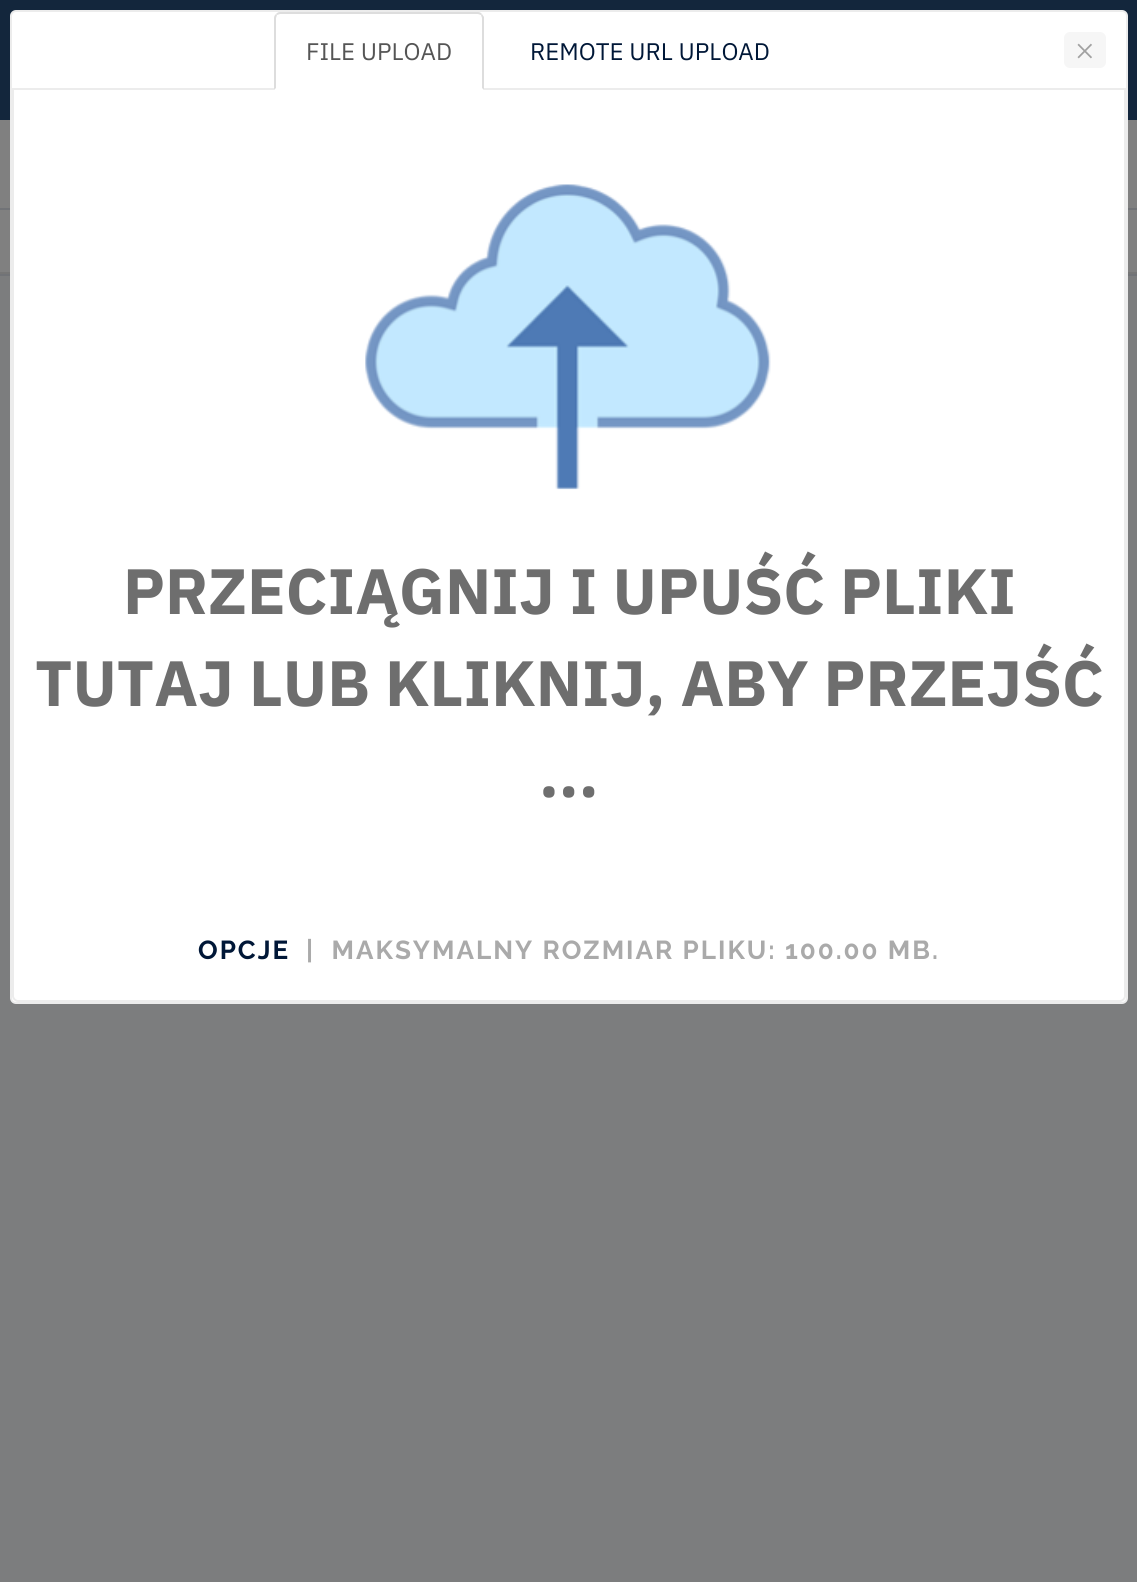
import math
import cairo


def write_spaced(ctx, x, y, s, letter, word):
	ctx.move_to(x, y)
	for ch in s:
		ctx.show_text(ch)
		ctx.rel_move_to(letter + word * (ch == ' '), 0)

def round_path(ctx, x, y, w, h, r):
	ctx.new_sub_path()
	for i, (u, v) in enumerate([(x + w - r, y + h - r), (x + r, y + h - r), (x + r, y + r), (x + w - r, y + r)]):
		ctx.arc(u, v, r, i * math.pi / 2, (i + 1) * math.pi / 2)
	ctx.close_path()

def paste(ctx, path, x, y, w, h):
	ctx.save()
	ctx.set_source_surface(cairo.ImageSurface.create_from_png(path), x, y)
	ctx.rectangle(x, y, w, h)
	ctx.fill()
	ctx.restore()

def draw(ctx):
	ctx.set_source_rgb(0.486, 0.49, 0.494)
	ctx.paint()
	ctx.set_source_rgb(0.502, 0.502, 0.502)
	ctx.rectangle(0, 120, 1137, 88)
	ctx.fill()
	ctx.set_source_rgb(0.443, 0.451, 0.467)
	ctx.rectangle(0, 208, 1137, 2)
	ctx.fill()
	ctx.set_source_rgb(0.075, 0.149, 0.235)
	ctx.rectangle(0, 0, 1137, 120)
	ctx.fill()
	ctx.set_source_rgb(0.502, 0.502, 0.502)
	ctx.rectangle(0, 210, 1137, 62)
	ctx.fill()
	ctx.set_source_rgb(0.443, 0.451, 0.467)
	ctx.rectangle(0, 274, 1137, 2)
	ctx.fill()
	ctx.set_source_rgb(0.463, 0.463, 0.463)
	ctx.rectangle(0, 272, 1137, 2)
	ctx.fill()
	ctx.set_source_rgb(1, 1, 1)
	round_path(ctx, 11, 11, 1116, 992, 5)
	ctx.fill_preserve()
	ctx.set_source_rgb(0.922, 0.922, 0.922)
	ctx.stroke()
	ctx.rectangle(12, 88, 1114, 2)
	ctx.fill()
	ctx.set_source_rgb(1, 1, 1)
	ctx.new_path()
	ctx.move_to(280, 12)
	ctx.line_to(478, 12)
	ctx.curve_to(481.5, 12, 484, 14.5, 484, 18)
	ctx.line_to(484, 90)
	ctx.line_to(274, 90)
	ctx.line_to(274, 18)
	ctx.curve_to(274, 14.5, 276.5, 12, 280, 12)
	ctx.close_path()
	ctx.fill()
	ctx.set_source_rgb(0.867, 0.867, 0.867)
	ctx.new_path()
	ctx.move_to(280, 12)
	ctx.curve_to(278, 12, 277, 13, 276, 14)
	ctx.line_to(277, 15)
	ctx.line_to(280, 14)
	ctx.line_to(445, 14)
	ctx.line_to(478, 14)
	ctx.line_to(481, 15)
	ctx.line_to(482, 14)
	ctx.curve_to(481, 13, 480, 12, 478, 12)
	ctx.close_path()
	ctx.fill()
	ctx.new_path()
	ctx.move_to(484, 90)
	ctx.line_to(484, 17)
	ctx.line_to(482, 14)
	ctx.line_to(481, 15)
	ctx.line_to(482, 18)
	ctx.line_to(482, 88)
	ctx.close_path()
	ctx.fill()
	ctx.new_path()
	ctx.move_to(274, 90)
	ctx.line_to(276, 88)
	ctx.line_to(276, 18)
	ctx.line_to(277, 15)
	ctx.line_to(276, 14)
	ctx.curve_to(275, 15, 274, 16, 274, 18)
	ctx.close_path()
	ctx.fill()
	ctx.select_font_face('IBM Plex Sans')
	ctx.set_font_size(24)
	ctx.set_source_rgb(0.333, 0.333, 0.333)
	ctx.move_to(306, 60)
	ctx.show_text('FILE UPLOAD')
	ctx.set_source_rgb(0, 0.09, 0.216)
	ctx.move_to(530, 60)
	ctx.show_text('REMOTE URL UPLOAD')
	ctx.set_source_rgb(0.961, 0.961, 0.961)
	round_path(ctx, 1064, 32, 42, 36, 6)
	ctx.fill()
	ctx.select_font_face('IBM Plex Sans Light')
	ctx.set_font_size(36)
	ctx.set_source_rgb(0.631, 0.631, 0.631)
	ctx.move_to(1074, 62)
	ctx.show_text('×')
	ctx.set_source_rgb(0.922, 0.922, 0.922)
	ctx.set_fill_rule(cairo.FILL_RULE_EVEN_ODD)
	ctx.new_path()
	ctx.move_to(12, 90)
	ctx.line_to(1126, 90)
	ctx.line_to(1126, 996)
	ctx.curve_to(1126, 999, 1123, 1002, 1120, 1002)
	ctx.line_to(18, 1002)
	ctx.curve_to(15, 1002, 12, 999, 12, 996)
	ctx.close_path()
	ctx.move_to(14, 90)
	ctx.line_to(1124, 90)
	ctx.line_to(1124, 996)
	ctx.curve_to(1124, 998, 1122, 1000, 1120, 1000)
	ctx.line_to(18, 1000)
	ctx.curve_to(16, 1000, 14, 998, 14, 996)
	ctx.close_path()
	ctx.fill()
	paste(ctx, 'media/1.png', 365, 184, 406, 306)
	ctx.select_font_face('IBM Plex Sans', cairo.FONT_SLANT_NORMAL, cairo.FONT_WEIGHT_BOLD)
	ctx.set_font_size(64)
	ctx.set_source_rgb(0.431, 0.431, 0.431)
	for x, y, s in [
		(123, 614, 'PRZECIĄGNIJ I UPUŚĆ PLIKI'),
		(35, 706, 'TUTAJ LUB KLIKNIJ, ABY PRZEJŚĆ'),
		(539, 797, '...'),
	]:
		ctx.move_to(x, y)
		ctx.show_text(s)
	ctx.select_font_face('Raleway', cairo.FONT_SLANT_NORMAL, cairo.FONT_WEIGHT_BOLD)
	ctx.set_font_size(26)
	ctx.set_source_rgb(0, 0.09, 0.216)
	write_spaced(ctx, 198, 959, 'OPCJE', 2, 0)
	ctx.set_source_rgb(0.667, 0.667, 0.667)
	write_spaced(ctx, 306, 959, '|  MAKSYMALNY ROZMIAR PLIKU: 100.00 MB.', 2, 0)


surface = cairo.ImageSurface(cairo.FORMAT_RGB24, 1137, 1582)
ctx = cairo.Context(surface)
options = cairo.FontOptions()
options.set_hint_metrics(cairo.HINT_METRICS_OFF)
options.set_hint_style(cairo.HINT_STYLE_NONE)
ctx.set_font_options(options)
ctx.set_miter_limit(4)
draw(ctx)
surface.write_to_png('image.png')
